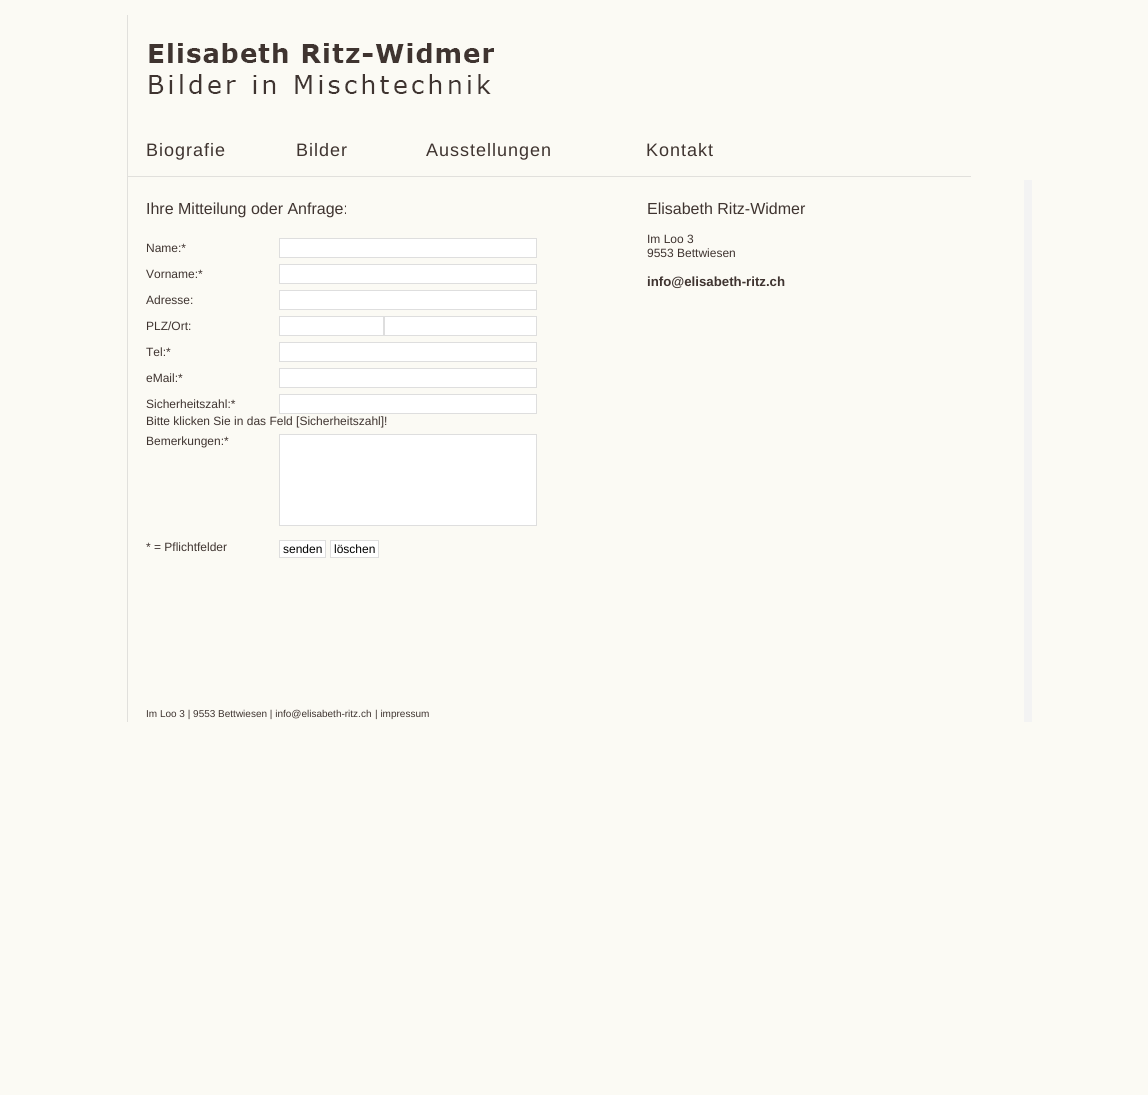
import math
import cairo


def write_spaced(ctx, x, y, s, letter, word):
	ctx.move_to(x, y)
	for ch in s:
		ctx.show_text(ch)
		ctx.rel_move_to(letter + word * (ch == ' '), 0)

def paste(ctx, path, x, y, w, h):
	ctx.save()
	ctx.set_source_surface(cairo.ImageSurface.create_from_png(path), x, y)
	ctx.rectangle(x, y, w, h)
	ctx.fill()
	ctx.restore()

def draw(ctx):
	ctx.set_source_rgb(0.984, 0.98, 0.957)
	ctx.paint()
	paste(ctx, 'media/1.png', 127, 180, 905, 542)
	paste(ctx, 'media/2.png', 127, 0, 905, 180)
	ctx.select_font_face('Liberation Sans')
	ctx.set_font_size(18)
	ctx.set_source_rgb(0.247, 0.204, 0.188)
	for x, y, s in [
		(146, 156, 'Biografie'),
		(296, 156, 'Bilder'),
		(426, 156, 'Ausstellungen'),
		(646, 156, 'Kontakt'),
	]:
		write_spaced(ctx, x, y, s, 1, 0)
	ctx.set_font_size(16)
	ctx.move_to(146, 214)
	ctx.show_text('Ihre Mitteilung oder Anfrage:')
	ctx.set_font_size(12)
	ctx.move_to(146, 252)
	ctx.show_text('Name:*')
	ctx.set_source_rgb(1, 1, 1)
	ctx.rectangle(279.5, 238.5, 257, 19)
	ctx.fill_preserve()
	ctx.set_source_rgb(0.871, 0.871, 0.871)
	ctx.set_line_width(1)
	ctx.stroke()
	ctx.set_source_rgb(0.247, 0.204, 0.188)
	ctx.move_to(146, 278)
	ctx.show_text('Vorname:*')
	ctx.set_source_rgb(1, 1, 1)
	ctx.rectangle(279.5, 264.5, 257, 19)
	ctx.fill_preserve()
	ctx.set_source_rgb(0.871, 0.871, 0.871)
	ctx.stroke()
	ctx.set_source_rgb(0.247, 0.204, 0.188)
	ctx.move_to(146, 304)
	ctx.show_text('Adresse:')
	ctx.set_source_rgb(1, 1, 1)
	ctx.rectangle(279.5, 290.5, 257, 19)
	ctx.fill_preserve()
	ctx.set_source_rgb(0.871, 0.871, 0.871)
	ctx.stroke()
	ctx.set_source_rgb(0.247, 0.204, 0.188)
	ctx.move_to(146, 330)
	ctx.show_text('PLZ/Ort:')
	ctx.set_source_rgb(1, 1, 1)
	ctx.rectangle(279.5, 316.5, 104, 19)
	ctx.fill_preserve()
	ctx.set_source_rgb(0.871, 0.871, 0.871)
	ctx.stroke()
	ctx.set_source_rgb(1, 1, 1)
	ctx.rectangle(384.5, 316.5, 152, 19)
	ctx.fill_preserve()
	ctx.set_source_rgb(0.871, 0.871, 0.871)
	ctx.stroke()
	ctx.set_source_rgb(0.247, 0.204, 0.188)
	ctx.move_to(146, 356)
	ctx.show_text('Tel:*')
	ctx.set_source_rgb(1, 1, 1)
	ctx.rectangle(279.5, 342.5, 257, 19)
	ctx.fill_preserve()
	ctx.set_source_rgb(0.871, 0.871, 0.871)
	ctx.stroke()
	ctx.set_source_rgb(0.247, 0.204, 0.188)
	ctx.move_to(146, 382)
	ctx.show_text('eMail:*')
	ctx.set_source_rgb(1, 1, 1)
	ctx.rectangle(279.5, 368.5, 257, 19)
	ctx.fill_preserve()
	ctx.set_source_rgb(0.871, 0.871, 0.871)
	ctx.stroke()
	ctx.set_source_rgb(0.247, 0.204, 0.188)
	ctx.move_to(146, 408)
	ctx.show_text('Sicherheitszahl:*')
	ctx.set_source_rgb(1, 1, 1)
	ctx.rectangle(279.5, 394.5, 257, 19)
	ctx.fill_preserve()
	ctx.set_source_rgb(0.871, 0.871, 0.871)
	ctx.stroke()
	ctx.set_source_rgb(0.247, 0.204, 0.188)
	ctx.move_to(146, 425)
	ctx.show_text('Bitte klicken Sie in das Feld [Sicherheitszahl]!')
	ctx.move_to(146, 445)
	ctx.show_text('Bemerkungen:*')
	ctx.set_source_rgb(1, 1, 1)
	ctx.rectangle(279.5, 434.5, 257, 91)
	ctx.fill_preserve()
	ctx.set_source_rgb(0.871, 0.871, 0.871)
	ctx.stroke()
	ctx.set_source_rgb(0.247, 0.204, 0.188)
	ctx.move_to(146, 551)
	ctx.show_text('* = Pflichtfelder')
	ctx.set_source_rgb(1, 1, 1)
	ctx.rectangle(279.5, 540.5, 46, 17)
	ctx.fill_preserve()
	ctx.set_source_rgb(0.871, 0.871, 0.871)
	ctx.stroke()
	ctx.set_source_rgb(0, 0, 0)
	ctx.move_to(283, 553)
	ctx.show_text('senden')
	ctx.set_source_rgb(1, 1, 1)
	ctx.rectangle(330.5, 540.5, 48, 17)
	ctx.fill_preserve()
	ctx.set_source_rgb(0.871, 0.871, 0.871)
	ctx.stroke()
	ctx.set_source_rgb(0, 0, 0)
	ctx.move_to(334, 553)
	ctx.show_text('löschen')
	ctx.set_font_size(16)
	ctx.set_source_rgb(0.247, 0.204, 0.188)
	ctx.move_to(647, 214)
	ctx.show_text('Elisabeth Ritz-Widmer')
	ctx.set_font_size(12)
	ctx.move_to(647, 243)
	ctx.show_text('Im Loo 3')
	ctx.move_to(647, 257)
	ctx.show_text('9553 Bettwiesen')
	ctx.select_font_face('Liberation Sans', cairo.FONT_SLANT_NORMAL, cairo.FONT_WEIGHT_BOLD)
	ctx.set_font_size(13.25)
	ctx.move_to(647, 286)
	ctx.show_text('info@elisabeth-ritz.ch')
	ctx.select_font_face('Liberation Sans')
	ctx.set_font_size(10)
	ctx.move_to(146, 717)
	ctx.show_text('Im Loo 3 | 9553 Bettwiesen | info@elisabeth-ritz.ch')
	ctx.move_to(375, 717)
	ctx.show_text('| impressum')


surface = cairo.ImageSurface(cairo.FORMAT_RGB24, 1148, 1095)
ctx = cairo.Context(surface)
options = cairo.FontOptions()
options.set_hint_metrics(cairo.HINT_METRICS_OFF)
options.set_hint_style(cairo.HINT_STYLE_NONE)
ctx.set_font_options(options)
ctx.set_miter_limit(4)
draw(ctx)
surface.write_to_png('image.png')
